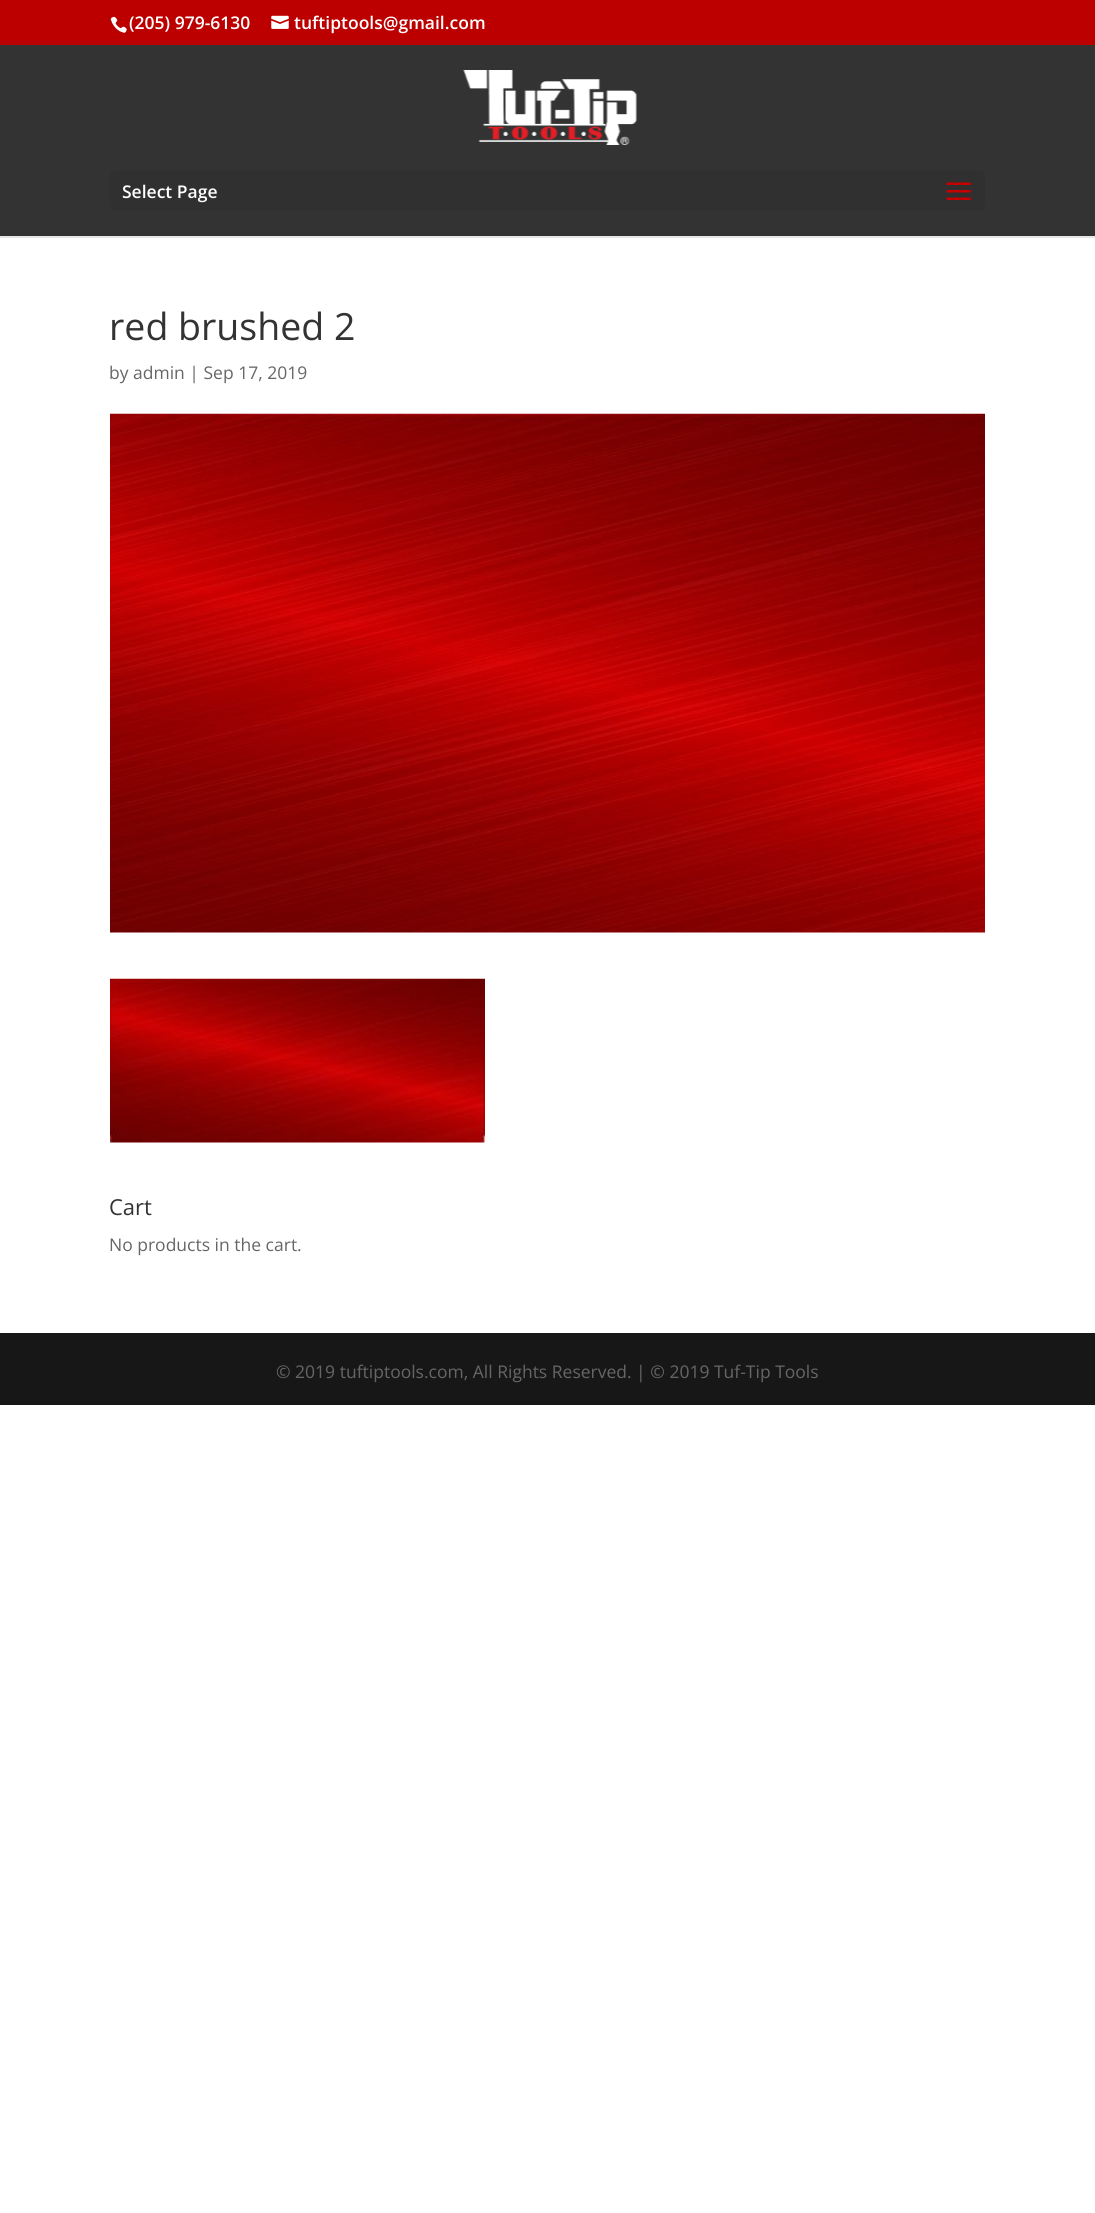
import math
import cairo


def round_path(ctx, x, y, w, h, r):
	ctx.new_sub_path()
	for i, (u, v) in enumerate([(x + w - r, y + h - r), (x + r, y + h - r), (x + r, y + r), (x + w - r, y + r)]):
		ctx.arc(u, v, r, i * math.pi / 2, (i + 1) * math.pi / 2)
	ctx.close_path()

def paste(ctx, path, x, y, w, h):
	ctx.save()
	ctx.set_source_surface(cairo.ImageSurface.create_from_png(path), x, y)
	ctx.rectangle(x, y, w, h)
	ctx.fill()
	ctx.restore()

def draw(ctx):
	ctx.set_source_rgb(1, 1, 1)
	ctx.paint()
	ctx.set_source_rgb(0.737, 0, 0)
	ctx.rectangle(0, 0, 1095, 45)
	ctx.fill()
	paste(ctx, 'media/1.png', 110, 16, 17, 17)
	ctx.select_font_face('Open Sans SemiBold')
	ctx.set_font_size(17.5)
	ctx.set_source_rgb(1, 1, 1)
	ctx.move_to(129, 29)
	ctx.show_text('(205) 979-6130')
	paste(ctx, 'media/2.png', 271, 15, 18, 14)
	ctx.move_to(294, 29)
	ctx.show_text('tuftiptools@gmail.com')
	ctx.set_source_rgb(0.902, 0.902, 0.902)
	ctx.rectangle(0, 236, 1095, 2)
	ctx.fill()
	ctx.set_source_rgb(0.2, 0.2, 0.2)
	ctx.rectangle(0, 45, 1095, 191)
	ctx.fill()
	paste(ctx, 'media/3.png', 463, 70, 174, 75)
	ctx.set_source_rgb(0.188, 0.188, 0.188)
	round_path(ctx, 110, 170, 875, 41, 6)
	ctx.fill()
	ctx.set_source_rgb(1, 1, 1)
	ctx.move_to(122, 198)
	ctx.show_text('Select Page')
	paste(ctx, 'media/4.png', 946, 182, 26, 18)
	ctx.select_font_face('Open Sans')
	ctx.set_font_size(37.5)
	ctx.set_source_rgb(0.2, 0.2, 0.2)
	ctx.move_to(109, 340)
	ctx.show_text('red brushed 2')
	ctx.set_font_size(17.5)
	ctx.set_source_rgb(0.4, 0.4, 0.4)
	ctx.move_to(109, 379)
	ctx.show_text('by admin | Sep 17, 2019')
	paste(ctx, 'media/5.png', 110, 413, 875, 520)
	paste(ctx, 'media/6.png', 110, 978, 375, 165)
	ctx.set_font_size(22)
	ctx.set_source_rgb(0.2, 0.2, 0.2)
	ctx.move_to(109, 1215)
	ctx.show_text('Cart')
	ctx.set_font_size(17.5)
	ctx.set_source_rgb(0.4, 0.4, 0.4)
	ctx.move_to(109, 1251)
	ctx.show_text('No products in the cart.')
	ctx.set_source_rgb(0.09, 0.09, 0.09)
	ctx.rectangle(0, 1333, 1095, 72)
	ctx.fill()
	ctx.set_source_rgb(0.4, 0.4, 0.4)
	ctx.move_to(276, 1378)
	ctx.show_text('© 2019 tuftiptools.com, All Rights Reserved. | © 2019 Tuf-Tip Tools')


surface = cairo.ImageSurface(cairo.FORMAT_RGB24, 1095, 2213)
ctx = cairo.Context(surface)
options = cairo.FontOptions()
options.set_hint_metrics(cairo.HINT_METRICS_OFF)
options.set_hint_style(cairo.HINT_STYLE_NONE)
ctx.set_font_options(options)
ctx.set_miter_limit(4)
draw(ctx)
surface.write_to_png('image.png')
